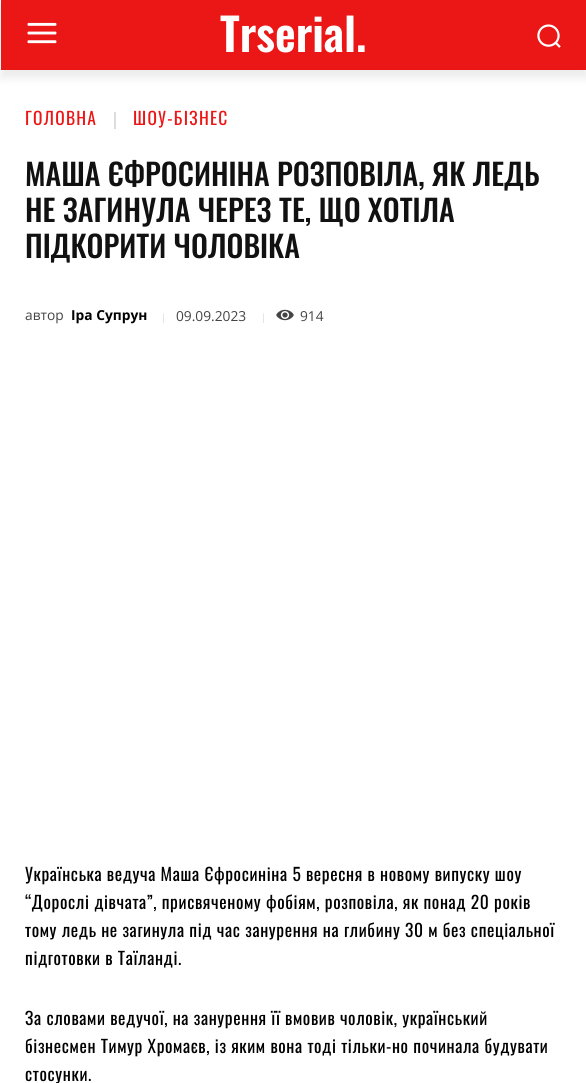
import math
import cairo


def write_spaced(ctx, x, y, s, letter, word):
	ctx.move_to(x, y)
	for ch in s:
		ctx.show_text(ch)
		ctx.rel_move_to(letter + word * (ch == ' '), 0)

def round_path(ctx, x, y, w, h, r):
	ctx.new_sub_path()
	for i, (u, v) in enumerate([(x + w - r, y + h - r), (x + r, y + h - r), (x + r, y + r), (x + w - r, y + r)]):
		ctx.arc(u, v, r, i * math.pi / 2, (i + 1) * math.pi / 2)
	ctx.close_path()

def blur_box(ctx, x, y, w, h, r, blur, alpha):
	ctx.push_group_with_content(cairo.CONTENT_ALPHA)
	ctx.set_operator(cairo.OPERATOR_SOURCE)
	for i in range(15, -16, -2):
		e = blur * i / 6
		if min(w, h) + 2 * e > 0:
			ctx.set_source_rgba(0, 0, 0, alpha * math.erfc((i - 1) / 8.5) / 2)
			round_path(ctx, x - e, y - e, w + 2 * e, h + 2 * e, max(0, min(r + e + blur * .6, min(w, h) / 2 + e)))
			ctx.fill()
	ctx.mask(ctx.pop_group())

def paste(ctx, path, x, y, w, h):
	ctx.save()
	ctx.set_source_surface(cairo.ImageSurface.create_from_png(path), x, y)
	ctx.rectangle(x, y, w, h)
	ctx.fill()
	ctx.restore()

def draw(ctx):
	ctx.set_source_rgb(1, 1, 1)
	ctx.paint()
	ctx.set_source_rgb(0.918, 0.09, 0.09)
	ctx.rectangle(1, 0, 585, 70)
	ctx.fill()
	paste(ctx, 'media/1.png', 27, 22, 30, 22)
	paste(ctx, 'media/2.png', 537, 24, 24, 24)
	ctx.save()
	ctx.set_fill_rule(cairo.FILL_RULE_EVEN_ODD)
	ctx.new_path()
	ctx.move_to(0, 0)
	ctx.line_to(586, 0)
	ctx.line_to(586, 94)
	ctx.line_to(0, 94)
	ctx.close_path()
	ctx.move_to(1, 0)
	ctx.line_to(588, 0)
	ctx.line_to(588, 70)
	ctx.line_to(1, 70)
	ctx.close_path()
	ctx.clip()
	ctx.set_source_rgb(0, 0, 0)
	blur_box(ctx, 1, 8, 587, 70, 0, 5, 0.08)
	ctx.restore()
	ctx.select_font_face('Oswald SemiBold')
	ctx.set_font_size(45)
	ctx.set_source_rgb(1, 1, 1)
	ctx.move_to(220, 52)
	ctx.show_text('Trserial.')
	ctx.select_font_face('Oswald')
	ctx.set_font_size(17.5)
	ctx.set_source_rgb(0.918, 0.09, 0.09)
	write_spaced(ctx, 25, 125, 'ГОЛОВНА', 1.25, 0)
	ctx.set_source_rgb(0.867, 0.867, 0.867)
	ctx.rectangle(114, 112, 2, 17)
	ctx.fill()
	ctx.set_source_rgb(0.918, 0.09, 0.09)
	write_spaced(ctx, 133, 125, 'ШОУ-БІЗНЕС', 1.25, 0)
	ctx.select_font_face('Oswald Medium')
	ctx.set_font_size(30)
	ctx.set_source_rgb(0.067, 0.067, 0.067)
	for x, y, s in [
		(25, 186, 'МАША ЄФРОСИНІНА РОЗПОВІЛА, ЯК ЛЕДЬ'),
		(25, 222, 'НЕ ЗАГИНУЛА ЧЕРЕЗ ТЕ, ЩО ХОТІЛА'),
		(25, 258, 'ПІДКОРИТИ ЧОЛОВІКА'),
	]:
		ctx.move_to(x, y)
		ctx.show_text(s)
	ctx.select_font_face('Open Sans')
	ctx.set_font_size(13.75)
	ctx.set_source_rgb(0.267, 0.267, 0.267)
	ctx.move_to(25, 320)
	ctx.show_text('автор')
	ctx.select_font_face('Open Sans', cairo.FONT_SLANT_NORMAL, cairo.FONT_WEIGHT_BOLD)
	ctx.set_source_rgb(0, 0, 0)
	ctx.move_to(71, 320)
	ctx.show_text('Іра Супрун')
	ctx.set_source_rgb(0.8, 0.8, 0.8)
	ctx.new_path()
	ctx.move_to(163.5, 313.5)
	ctx.line_to(164, 313.5)
	ctx.line_to(164, 323)
	ctx.line_to(163.5, 323)
	ctx.close_path()
	ctx.fill()
	ctx.select_font_face('Open Sans')
	ctx.set_source_rgb(0.267, 0.267, 0.267)
	ctx.move_to(176, 321)
	ctx.show_text('09.09.2023')
	ctx.set_source_rgb(0.8, 0.8, 0.8)
	ctx.new_path()
	ctx.move_to(263.5, 313.5)
	ctx.line_to(264, 313.5)
	ctx.line_to(264, 323)
	ctx.line_to(263.5, 323)
	ctx.close_path()
	ctx.fill()
	paste(ctx, 'media/3.png', 276, 309, 18, 12)
	ctx.set_source_rgb(0.267, 0.267, 0.267)
	ctx.move_to(300, 321)
	ctx.show_text('914')
	ctx.select_font_face('Oswald')
	ctx.set_font_size(17.5)
	ctx.set_source_rgb(0, 0, 0)
	for x, y, s in [
		(25, 881, 'Українська ведуча Маша Єфросиніна 5 вересня в новому випуску шоу'),
		(25, 909, '“Дорослі дівчата”, присвяченому фобіям, розповіла, як понад 20 років'),
		(25, 937, 'тому ледь не загинула під час занурення на глибину 30 м без спеціальної'),
		(25, 965, 'підготовки в Таїланді.'),
		(25, 1025, 'За словами ведучої, на занурення її вмовив чоловік, український'),
		(25, 1053, 'бізнесмен Тимур Хромаєв, із яким вона тоді тільки-но починала будувати'),
		(25, 1081, 'стосунки.'),
	]:
		write_spaced(ctx, x, y, s, 0.62, 0)


surface = cairo.ImageSurface(cairo.FORMAT_RGB24, 586, 1083)
ctx = cairo.Context(surface)
options = cairo.FontOptions()
options.set_hint_metrics(cairo.HINT_METRICS_OFF)
options.set_hint_style(cairo.HINT_STYLE_NONE)
ctx.set_font_options(options)
ctx.set_miter_limit(4)
draw(ctx)
surface.write_to_png('image.png')
